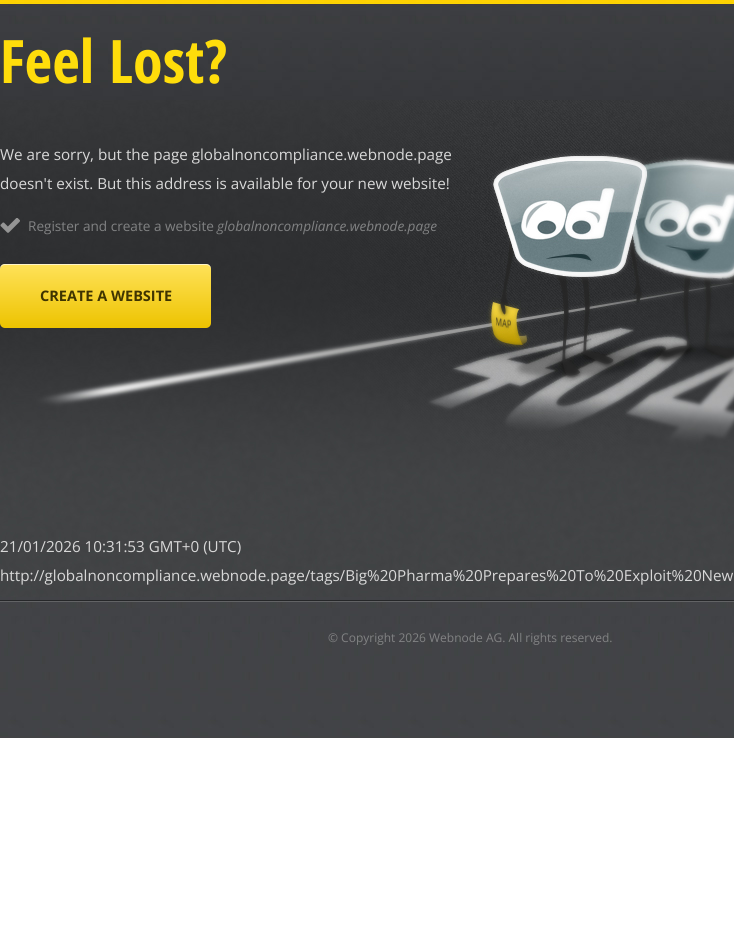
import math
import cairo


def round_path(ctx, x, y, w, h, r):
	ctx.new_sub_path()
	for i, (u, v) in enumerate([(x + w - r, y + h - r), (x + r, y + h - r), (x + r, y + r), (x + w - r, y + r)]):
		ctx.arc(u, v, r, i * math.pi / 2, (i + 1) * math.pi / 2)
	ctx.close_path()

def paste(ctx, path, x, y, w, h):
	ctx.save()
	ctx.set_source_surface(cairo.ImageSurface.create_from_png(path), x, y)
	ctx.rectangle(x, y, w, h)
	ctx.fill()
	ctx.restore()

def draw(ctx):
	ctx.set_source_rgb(1, 1, 1)
	ctx.paint()
	paste(ctx, 'media/1.png', 0, 0, 734, 738)
	ctx.select_font_face('Open Sans Condensed', cairo.FONT_SLANT_NORMAL, cairo.FONT_WEIGHT_BOLD)
	ctx.set_font_size(60)
	ctx.set_source_rgb(1, 0.867, 0.043)
	ctx.move_to(0, 83)
	ctx.show_text('Feel Lost?')
	paste(ctx, 'media/2.png', 0, 100, 734, 497)
	ctx.select_font_face('Open Sans')
	ctx.set_font_size(15.2)
	ctx.set_source_rgb(0.847, 0.847, 0.847)
	ctx.move_to(0, 160)
	ctx.show_text('We are sorry, but the page globalnoncompliance.webnode.page')
	ctx.move_to(0, 189)
	ctx.show_text('doesn\'t exist. But this address is available for your new website!')
	paste(ctx, 'media/3.png', 0, 218, 20, 15)
	ctx.set_font_size(13.6)
	ctx.set_source_rgb(0.506, 0.51, 0.514)
	ctx.move_to(28, 231)
	ctx.show_text('Register and create a website')
	ctx.select_font_face('Open Sans', cairo.FONT_SLANT_ITALIC)
	ctx.move_to(217, 231)
	ctx.show_text('globalnoncompliance.webnode.page')
	gradient = cairo.LinearGradient(106, 264, 106, 328)
	gradient.add_color_stop_rgba(0, 1, 0.886, 0.349, 1)
	gradient.add_color_stop_rgba(1, 0.929, 0.765, 0, 1)
	ctx.set_source(gradient)
	round_path(ctx, 0, 264, 211, 64, 5)
	ctx.fill()
	ctx.set_source_rgba(1, 1, 1, 0.67)
	ctx.new_path()
	ctx.move_to(5, 265)
	ctx.line_to(206, 265)
	ctx.curve_to(209, 265, 211, 267, 211, 270)
	ctx.line_to(211, 269)
	ctx.curve_to(211, 266, 209, 264, 206, 264)
	ctx.line_to(5, 264)
	ctx.curve_to(2, 264, 0, 266, 0, 269)
	ctx.line_to(0, 270)
	ctx.curve_to(0, 267, 2, 265, 5, 265)
	ctx.close_path()
	ctx.fill()
	ctx.select_font_face('Open Sans', cairo.FONT_SLANT_NORMAL, cairo.FONT_WEIGHT_BOLD)
	ctx.set_font_size(14.5)
	ctx.set_source_rgb(0.247, 0.204, 0)
	ctx.move_to(40, 301)
	ctx.show_text('CREATE A WEBSITE')
	ctx.select_font_face('Open Sans')
	ctx.set_font_size(15.2)
	ctx.set_source_rgb(0.847, 0.847, 0.847)
	ctx.move_to(0, 552)
	ctx.show_text('21/01/2026 10:31:53 GMT+0 (UTC)')
	ctx.move_to(0, 581)
	ctx.show_text('http://globalnoncompliance.webnode.page/tags/Big%20Pharma%20Prepares%20To%20Exploit%20New')
	paste(ctx, 'media/4.png', 0, 600, 734, 2)
	ctx.set_font_size(12)
	ctx.set_source_rgb(0.506, 0.51, 0.514)
	ctx.move_to(328, 642)
	ctx.show_text('© Copyright 2026 Webnode AG. All rights reserved.')


surface = cairo.ImageSurface(cairo.FORMAT_RGB24, 734, 938)
ctx = cairo.Context(surface)
options = cairo.FontOptions()
options.set_hint_metrics(cairo.HINT_METRICS_OFF)
options.set_hint_style(cairo.HINT_STYLE_NONE)
ctx.set_font_options(options)
ctx.set_miter_limit(4)
draw(ctx)
surface.write_to_png('image.png')
